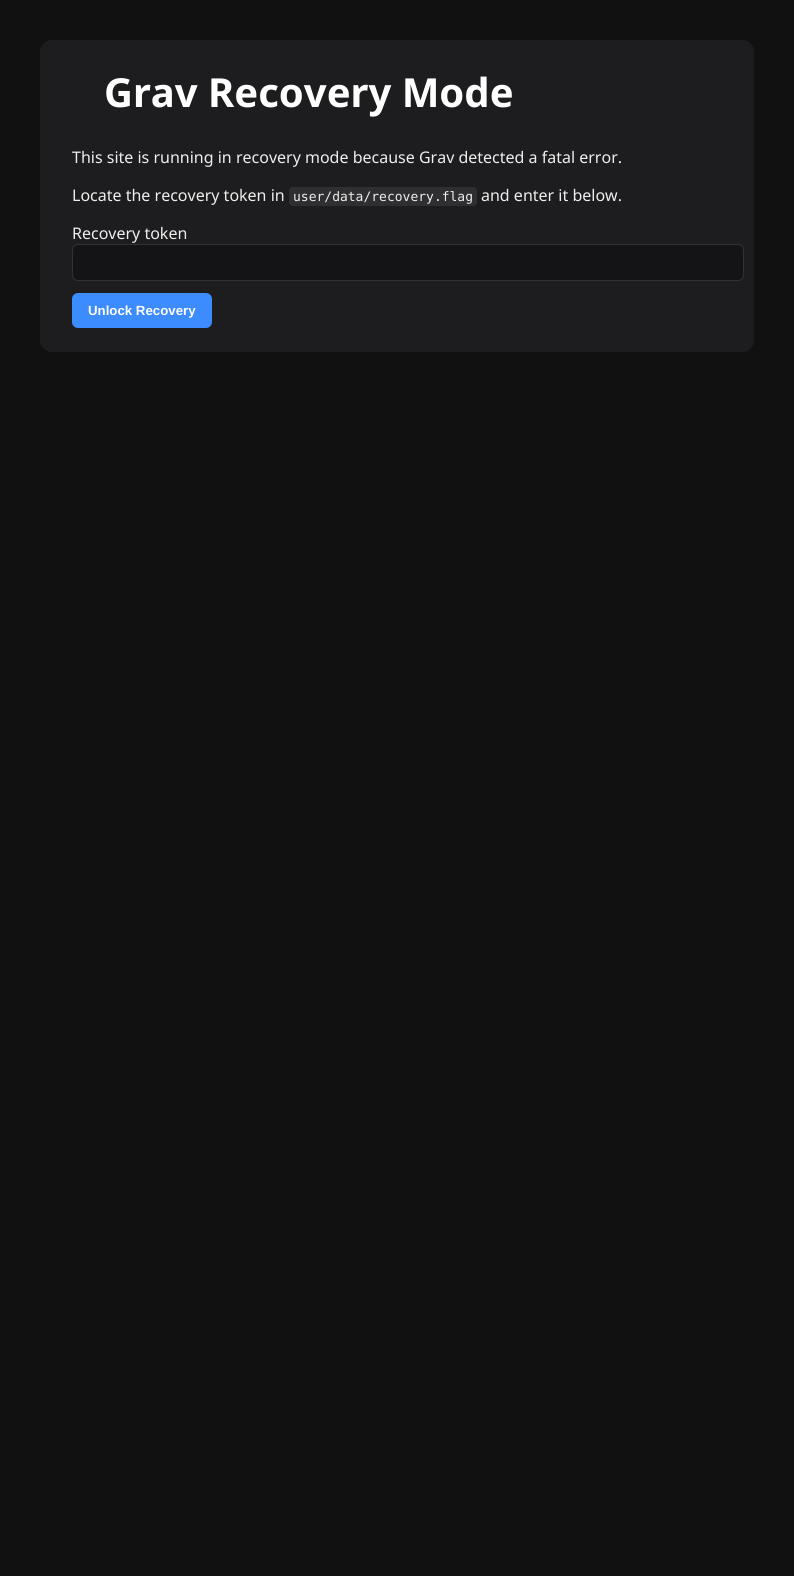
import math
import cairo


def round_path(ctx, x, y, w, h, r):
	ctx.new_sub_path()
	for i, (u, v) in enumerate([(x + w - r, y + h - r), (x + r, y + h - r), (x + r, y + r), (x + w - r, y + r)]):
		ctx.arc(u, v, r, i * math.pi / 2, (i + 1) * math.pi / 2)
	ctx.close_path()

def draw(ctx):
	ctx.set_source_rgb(0.067, 0.067, 0.067)
	ctx.paint()
	ctx.set_source_rgb(0.114, 0.114, 0.122)
	round_path(ctx, 40, 40, 714, 312, 12)
	ctx.fill()
	ctx.select_font_face('Noto Sans', cairo.FONT_SLANT_NORMAL, cairo.FONT_WEIGHT_BOLD)
	ctx.set_font_size(40)
	ctx.set_source_rgb(1, 1, 1)
	ctx.move_to(104, 107)
	ctx.show_text('Grav Recovery Mode')
	ctx.select_font_face('Noto Sans')
	ctx.set_font_size(16)
	ctx.set_source_rgb(0.933, 0.933, 0.933)
	ctx.move_to(72, 163)
	ctx.show_text('This site is running in recovery mode because Grav detected a fatal error.')
	ctx.move_to(72, 201)
	ctx.show_text('Locate the recovery token in')
	ctx.set_source_rgb(0.184, 0.184, 0.192)
	round_path(ctx, 289, 187, 188, 19, 4)
	ctx.fill()
	ctx.select_font_face('DejaVu Sans Mono')
	ctx.set_font_size(13)
	ctx.set_source_rgb(0.933, 0.933, 0.933)
	ctx.move_to(293, 201)
	ctx.show_text('user/data/recovery.flag')
	ctx.select_font_face('Noto Sans')
	ctx.set_font_size(16)
	ctx.move_to(481, 201)
	ctx.show_text('and enter it below.')
	ctx.move_to(72, 239)
	ctx.show_text('Recovery token')
	ctx.set_source_rgb(0.082, 0.082, 0.09)
	round_path(ctx, 72.5, 244.5, 671, 36, 5.5)
	ctx.fill_preserve()
	ctx.set_source_rgb(0.2, 0.2, 0.2)
	ctx.set_line_width(1)
	ctx.stroke()
	ctx.set_source_rgb(0.235, 0.545, 1)
	round_path(ctx, 72, 293, 140, 35, 6)
	ctx.fill()
	ctx.select_font_face('Liberation Sans', cairo.FONT_SLANT_NORMAL, cairo.FONT_WEIGHT_BOLD)
	ctx.set_font_size(13.25)
	ctx.set_source_rgb(1, 1, 1)
	ctx.move_to(88, 315)
	ctx.show_text('Unlock Recovery')


surface = cairo.ImageSurface(cairo.FORMAT_RGB24, 794, 1576)
ctx = cairo.Context(surface)
options = cairo.FontOptions()
options.set_hint_metrics(cairo.HINT_METRICS_OFF)
options.set_hint_style(cairo.HINT_STYLE_NONE)
ctx.set_font_options(options)
ctx.set_miter_limit(4)
draw(ctx)
surface.write_to_png('image.png')
